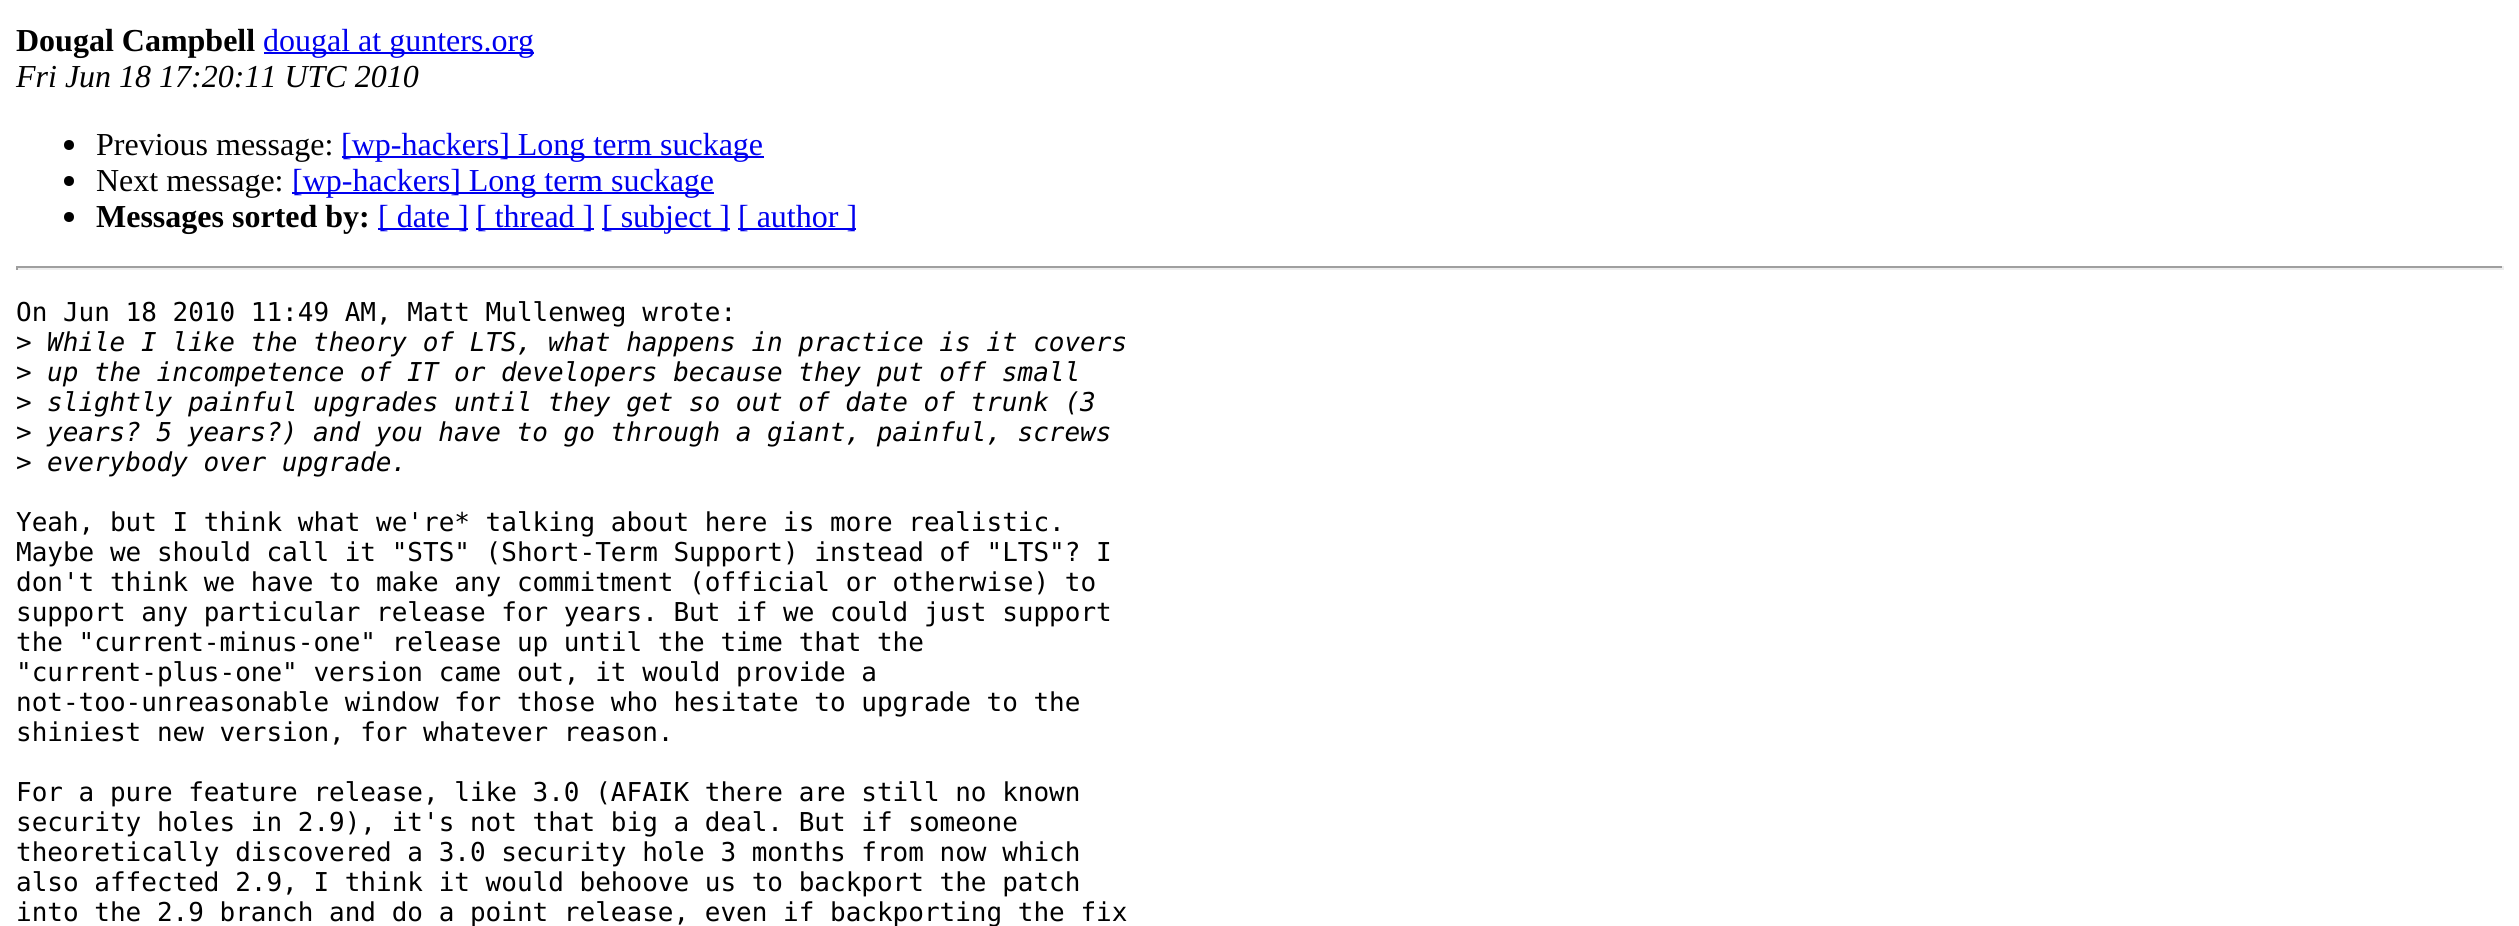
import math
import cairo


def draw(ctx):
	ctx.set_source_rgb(1, 1, 1)
	ctx.paint()
	ctx.select_font_face('Liberation Serif', cairo.FONT_SLANT_NORMAL, cairo.FONT_WEIGHT_BOLD)
	ctx.set_font_size(32)
	ctx.set_source_rgb(0, 0, 0)
	ctx.move_to(16, 51)
	ctx.show_text('Dougal Campbell')
	ctx.set_source_rgb(0, 0, 0.933)
	ctx.rectangle(264, 52, 270, 2)
	ctx.fill()
	ctx.select_font_face('Liberation Serif')
	ctx.move_to(263, 51)
	ctx.show_text('dougal at gunters.org')
	ctx.select_font_face('Liberation Serif', cairo.FONT_SLANT_ITALIC)
	ctx.set_source_rgb(0, 0, 0)
	ctx.move_to(16, 87)
	ctx.show_text('Fri Jun 18 17:20:11 UTC 2010')
	ctx.new_path()
	ctx.arc(69, 145, 5, 0, 2 * math.pi)
	ctx.fill()
	ctx.select_font_face('Liberation Serif')
	ctx.move_to(96, 155)
	ctx.show_text('Previous message:')
	ctx.set_source_rgb(0, 0, 0.933)
	ctx.rectangle(342, 156, 422, 2)
	ctx.fill()
	ctx.move_to(341, 155)
	ctx.show_text('[wp-hackers] Long term suckage')
	ctx.set_source_rgb(0, 0, 0)
	ctx.new_path()
	ctx.arc(69, 181, 5, 0, 2 * math.pi)
	ctx.fill()
	ctx.move_to(96, 191)
	ctx.show_text('Next message:')
	ctx.set_source_rgb(0, 0, 0.933)
	ctx.rectangle(292, 192, 422, 2)
	ctx.fill()
	ctx.move_to(292, 191)
	ctx.show_text('[wp-hackers] Long term suckage')
	ctx.set_source_rgb(0, 0, 0)
	ctx.new_path()
	ctx.arc(69, 217, 5, 0, 2 * math.pi)
	ctx.fill()
	ctx.select_font_face('Liberation Serif', cairo.FONT_SLANT_NORMAL, cairo.FONT_WEIGHT_BOLD)
	ctx.move_to(96, 227)
	ctx.show_text('Messages sorted by:')
	ctx.set_source_rgb(0, 0, 0.933)
	ctx.rectangle(378, 228, 90, 2)
	ctx.fill()
	ctx.select_font_face('Liberation Serif')
	ctx.move_to(378, 227)
	ctx.show_text('[ date ]')
	ctx.rectangle(476, 228, 118, 2)
	ctx.fill()
	ctx.move_to(476, 227)
	ctx.show_text('[ thread ]')
	ctx.rectangle(602, 228, 128, 2)
	ctx.fill()
	ctx.move_to(602, 227)
	ctx.show_text('[ subject ]')
	ctx.rectangle(738, 228, 118, 2)
	ctx.fill()
	ctx.move_to(738, 227)
	ctx.show_text('[ author ]')
	ctx.set_source_rgb(0.624, 0.624, 0.624)
	ctx.rectangle(16, 266, 2488, 2)
	ctx.fill()
	ctx.set_source_rgb(0.933, 0.933, 0.933)
	ctx.rectangle(2502, 266, 2, 4)
	ctx.rectangle(16, 268, 2488, 2)
	ctx.fill()
	ctx.set_source_rgb(0.624, 0.624, 0.624)
	ctx.rectangle(16, 266, 2, 4)
	ctx.fill()
	ctx.select_font_face('DejaVu Sans Mono')
	ctx.set_font_size(26)
	ctx.set_source_rgb(0, 0, 0)
	ctx.move_to(16, 321)
	ctx.show_text('On Jun 18 2010 11:49 AM, Matt Mullenweg wrote:')
	ctx.move_to(16, 351)
	ctx.show_text('>')
	ctx.select_font_face('DejaVu Sans Mono', cairo.FONT_SLANT_ITALIC)
	ctx.move_to(47, 351)
	ctx.show_text('While I like the theory of LTS, what happens in practice is it covers')
	ctx.select_font_face('DejaVu Sans Mono')
	ctx.move_to(16, 381)
	ctx.show_text('>')
	ctx.select_font_face('DejaVu Sans Mono', cairo.FONT_SLANT_ITALIC)
	ctx.move_to(47, 381)
	ctx.show_text('up the incompetence of IT or developers because they put off small')
	ctx.select_font_face('DejaVu Sans Mono')
	ctx.move_to(16, 411)
	ctx.show_text('>')
	ctx.select_font_face('DejaVu Sans Mono', cairo.FONT_SLANT_ITALIC)
	ctx.move_to(47, 411)
	ctx.show_text('slightly painful upgrades until they get so out of date of trunk (3')
	ctx.select_font_face('DejaVu Sans Mono')
	ctx.move_to(16, 441)
	ctx.show_text('>')
	ctx.select_font_face('DejaVu Sans Mono', cairo.FONT_SLANT_ITALIC)
	ctx.move_to(47, 441)
	ctx.show_text('years? 5 years?) and you have to go through a giant, painful, screws')
	ctx.select_font_face('DejaVu Sans Mono')
	ctx.move_to(16, 471)
	ctx.show_text('>')
	ctx.select_font_face('DejaVu Sans Mono', cairo.FONT_SLANT_ITALIC)
	ctx.move_to(47, 471)
	ctx.show_text('everybody over upgrade.')
	ctx.select_font_face('DejaVu Sans Mono')
	for x, y, s in [
		(16, 531, 'Yeah, but I think what we\'re* talking about here is more realistic.'),
		(16, 561, 'Maybe we should call it "STS" (Short-Term Support) instead of "LTS"? I'),
		(16, 591, 'don\'t think we have to make any commitment (official or otherwise) to'),
		(16, 621, 'support any particular release for years. But if we could just support'),
		(16, 651, 'the "current-minus-one" release up until the time that the'),
		(16, 681, '"current-plus-one" version came out, it would provide a'),
		(16, 711, 'not-too-unreasonable window for those who hesitate to upgrade to the'),
		(16, 741, 'shiniest new version, for whatever reason.'),
		(16, 801, 'For a pure feature release, like 3.0 (AFAIK there are still no known'),
		(16, 831, 'security holes in 2.9), it\'s not that big a deal. But if someone'),
		(16, 861, 'theoretically discovered a 3.0 security hole 3 months from now which'),
		(16, 891, 'also affected 2.9, I think it would behoove us to backport the patch'),
		(16, 921, 'into the 2.9 branch and do a point release, even if backporting the fix'),
	]:
		ctx.move_to(x, y)
		ctx.show_text(s)


surface = cairo.ImageSurface(cairo.FORMAT_RGB24, 2519, 926)
ctx = cairo.Context(surface)
options = cairo.FontOptions()
options.set_hint_metrics(cairo.HINT_METRICS_OFF)
options.set_hint_style(cairo.HINT_STYLE_NONE)
ctx.set_font_options(options)
ctx.set_miter_limit(4)
draw(ctx)
surface.write_to_png('image.png')
